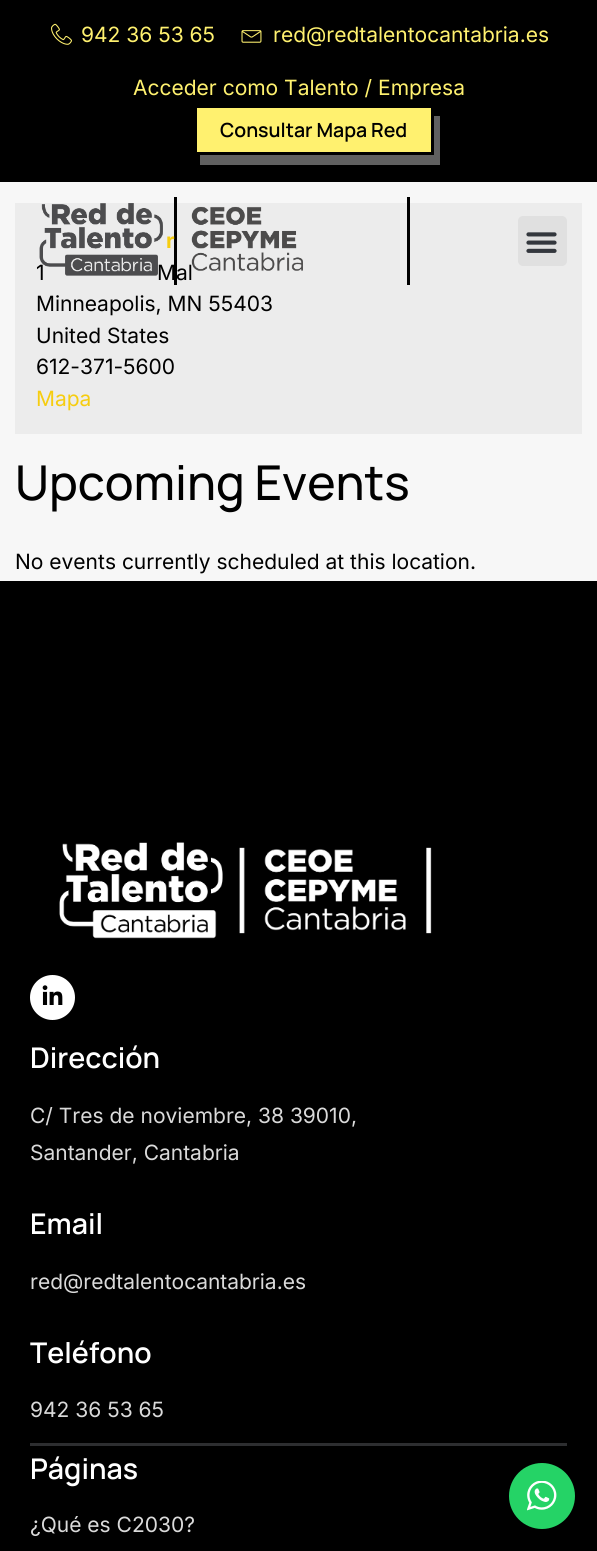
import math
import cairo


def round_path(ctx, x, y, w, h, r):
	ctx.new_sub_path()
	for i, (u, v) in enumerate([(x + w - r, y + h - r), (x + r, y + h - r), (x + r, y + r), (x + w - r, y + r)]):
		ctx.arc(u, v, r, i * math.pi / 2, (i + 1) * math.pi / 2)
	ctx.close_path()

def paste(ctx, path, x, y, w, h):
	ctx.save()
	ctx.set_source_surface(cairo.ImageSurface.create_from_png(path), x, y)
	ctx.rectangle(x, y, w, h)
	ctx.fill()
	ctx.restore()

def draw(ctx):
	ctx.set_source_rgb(0.965, 0.965, 0.965)
	ctx.paint()
	ctx.set_source_rgb(0, 0, 0)
	ctx.rectangle(0, 0, 597, 182)
	ctx.fill()
	paste(ctx, 'media/1.png', 51, 23, 21, 22)
	ctx.select_font_face('Inter')
	ctx.set_font_size(21)
	ctx.set_source_rgb(1, 0.945, 0.435)
	ctx.move_to(81, 42)
	ctx.show_text('942 36 53 65')
	paste(ctx, 'media/2.png', 241, 30, 21, 13)
	ctx.move_to(273, 42)
	ctx.show_text('red@redtalentocantabria.es')
	ctx.move_to(133, 95)
	ctx.show_text('Acceder como Talento / Empresa')
	ctx.set_source_rgb(0.376, 0.376, 0.376)
	ctx.new_path()
	ctx.move_to(200, 154)
	ctx.line_to(200, 165)
	ctx.line_to(440, 165)
	ctx.line_to(440, 116)
	ctx.line_to(434, 116)
	ctx.line_to(434, 154)
	ctx.close_path()
	ctx.fill()
	ctx.set_source_rgb(1, 0.945, 0.435)
	ctx.rectangle(195.5, 106.5, 237, 47)
	ctx.fill_preserve()
	ctx.set_source_rgb(0, 0, 0)
	ctx.set_line_width(3)
	ctx.stroke()
	ctx.select_font_face('Manrope SemiBold')
	ctx.set_font_size(19.5)
	ctx.move_to(220, 137)
	ctx.show_text('Consultar Mapa Red')
	ctx.set_source_rgb(0.925, 0.925, 0.925)
	ctx.rectangle(15, 203, 567, 231)
	ctx.fill()
	ctx.set_source_rgb(0, 0, 0)
	ctx.rectangle(174, 197, 3, 88)
	ctx.fill()
	ctx.select_font_face('Inter')
	ctx.set_font_size(21)
	ctx.move_to(36, 280)
	ctx.show_text('1')
	ctx.move_to(157, 280)
	ctx.show_text('Mal')
	paste(ctx, 'media/3.png', 39, 203, 124, 73)
	paste(ctx, 'media/4.png', 191, 206, 112, 65)
	ctx.rectangle(407, 197, 3, 88)
	ctx.fill()
	ctx.set_source_rgb(0.878, 0.878, 0.878)
	round_path(ctx, 518, 216, 49, 50, 5)
	ctx.fill()
	paste(ctx, 'media/5.png', 526, 232, 31, 21)
	ctx.select_font_face('Inter', cairo.FONT_SLANT_NORMAL, cairo.FONT_WEIGHT_BOLD)
	ctx.set_source_rgb(0.961, 0.804, 0.063)
	ctx.move_to(166, 248)
	ctx.show_text('r')
	ctx.select_font_face('Inter')
	ctx.set_source_rgb(0, 0, 0)
	for x, y, s in [
		(36, 311, 'Minneapolis, MN 55403'),
		(36, 343, 'United States'),
		(36, 374, '612-371-5600'),
	]:
		ctx.move_to(x, y)
		ctx.show_text(s)
	ctx.set_source_rgb(0.961, 0.804, 0.063)
	ctx.move_to(36, 406)
	ctx.show_text('Mapa')
	ctx.select_font_face('Manrope Medium')
	ctx.set_font_size(48)
	ctx.set_source_rgb(0, 0, 0)
	ctx.move_to(15, 500)
	ctx.show_text('Upcoming Events')
	ctx.select_font_face('Inter')
	ctx.set_font_size(21)
	ctx.move_to(15, 569)
	ctx.show_text('No events currently scheduled at this location.')
	ctx.rectangle(0, 581, 597, 970)
	ctx.fill()
	paste(ctx, 'media/6.png', 59, 842, 373, 97)
	ctx.set_source_rgb(1, 1, 1)
	ctx.arc(52.5, 997.5, 22.5, 0, 2 * math.pi)
	ctx.fill()
	paste(ctx, 'media/7.png', 42, 985, 21, 20)
	ctx.set_source_rgb(0.176, 0.18, 0.188)
	ctx.rectangle(30, 1443, 537, 3)
	ctx.fill()
	ctx.select_font_face('Manrope SemiBold')
	ctx.set_font_size(28.5)
	ctx.set_source_rgb(1, 1, 1)
	ctx.move_to(30, 1068)
	ctx.show_text('Dirección')
	ctx.select_font_face('Inter')
	ctx.set_font_size(21)
	ctx.set_source_rgb(0.855, 0.855, 0.855)
	ctx.move_to(30, 1123)
	ctx.show_text('C/ Tres de noviembre, 38 39010,')
	ctx.move_to(30, 1160)
	ctx.show_text('Santander, Cantabria')
	ctx.select_font_face('Manrope SemiBold')
	ctx.set_font_size(28.5)
	ctx.set_source_rgb(1, 1, 1)
	ctx.move_to(30, 1234)
	ctx.show_text('Email')
	ctx.select_font_face('Inter')
	ctx.set_font_size(21)
	ctx.set_source_rgb(0.855, 0.855, 0.855)
	ctx.move_to(30, 1289)
	ctx.show_text('red@redtalentocantabria.es')
	ctx.select_font_face('Manrope SemiBold')
	ctx.set_font_size(28.5)
	ctx.set_source_rgb(1, 1, 1)
	ctx.move_to(30, 1363)
	ctx.show_text('Teléfono')
	ctx.select_font_face('Inter')
	ctx.set_font_size(21)
	ctx.set_source_rgb(0.855, 0.855, 0.855)
	ctx.move_to(30, 1417)
	ctx.show_text('942 36 53 65')
	ctx.select_font_face('Manrope SemiBold')
	ctx.set_font_size(28.5)
	ctx.set_source_rgb(1, 1, 1)
	ctx.move_to(30, 1479)
	ctx.show_text('Páginas')
	ctx.select_font_face('Inter')
	ctx.set_font_size(21)
	ctx.set_source_rgb(0.855, 0.855, 0.855)
	ctx.move_to(30, 1532)
	ctx.show_text('¿Qué es C2030?')
	ctx.set_source_rgb(0.145, 0.827, 0.4)
	ctx.new_path()
	ctx.arc(542, 1496, 33, 0, 2 * math.pi)
	ctx.fill()
	paste(ctx, 'media/8.png', 527, 1481, 30, 30)


surface = cairo.ImageSurface(cairo.FORMAT_RGB24, 597, 1551)
ctx = cairo.Context(surface)
options = cairo.FontOptions()
options.set_hint_metrics(cairo.HINT_METRICS_OFF)
options.set_hint_style(cairo.HINT_STYLE_NONE)
ctx.set_font_options(options)
ctx.set_miter_limit(4)
draw(ctx)
surface.write_to_png('image.png')
